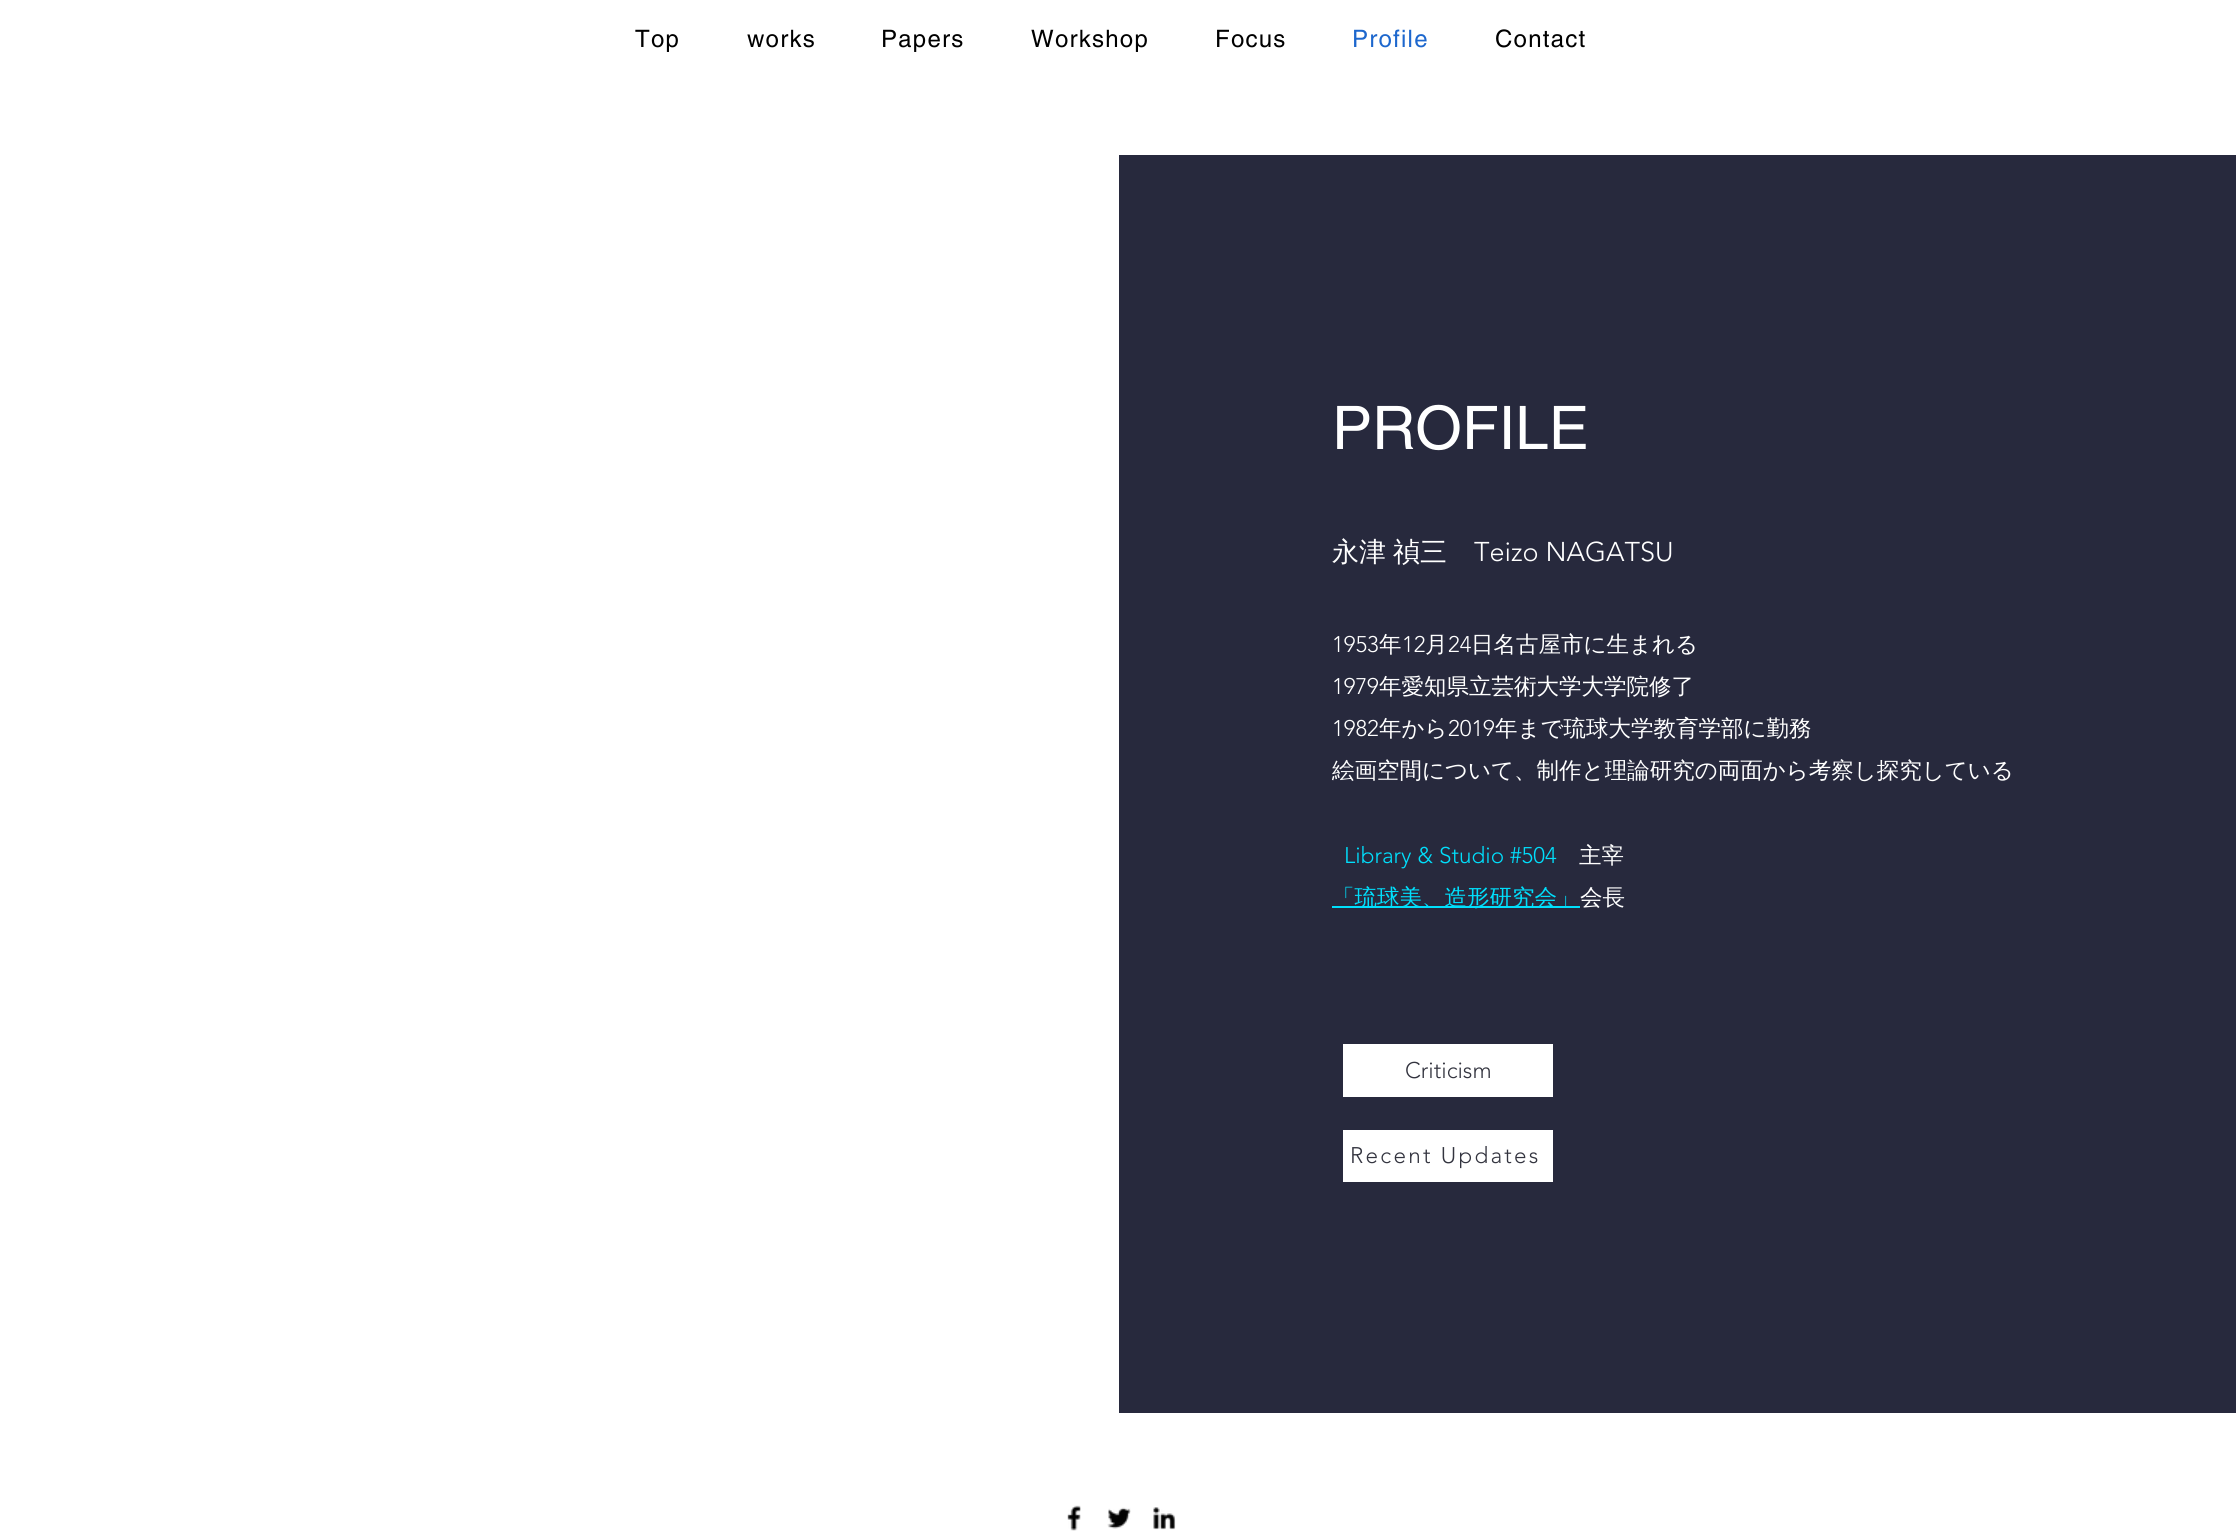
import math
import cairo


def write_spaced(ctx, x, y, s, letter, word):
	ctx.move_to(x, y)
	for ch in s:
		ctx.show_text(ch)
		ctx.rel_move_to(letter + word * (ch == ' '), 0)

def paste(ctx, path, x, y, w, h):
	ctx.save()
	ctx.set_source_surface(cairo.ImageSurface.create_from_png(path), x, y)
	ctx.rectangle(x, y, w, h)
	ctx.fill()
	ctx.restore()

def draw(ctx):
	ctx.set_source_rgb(1, 1, 1)
	ctx.paint()
	ctx.select_font_face('helvetica')
	ctx.set_font_size(24)
	ctx.set_source_rgb(0, 0, 0)
	for x, y, s in [
		(635, 47, 'Top'),
		(747, 47, 'works'),
		(881, 47, 'Papers'),
		(1031, 47, 'Workshop'),
		(1215, 47, 'Focus'),
	]:
		write_spaced(ctx, x, y, s, 1.25, 0)
	ctx.set_source_rgb(0.114, 0.404, 0.804)
	write_spaced(ctx, 1352, 47, 'Profile', 1.25, 0)
	ctx.set_source_rgb(0, 0, 0)
	write_spaced(ctx, 1495, 47, 'Contact', 1.25, 0)
	ctx.set_source_rgb(0.153, 0.161, 0.239)
	ctx.rectangle(1119, 155, 1117, 1258)
	ctx.fill()
	ctx.set_font_size(60)
	ctx.set_source_rgb(1, 1, 1)
	ctx.move_to(1332, 449)
	ctx.show_text('PROFILE')
	ctx.select_font_face('WenQuanYi Zen Hei Medium')
	ctx.set_font_size(27)
	ctx.move_to(1332, 561)
	ctx.show_text('永津')
	ctx.move_to(1393, 561)
	ctx.show_text('禎三')
	ctx.select_font_face('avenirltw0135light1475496 Light')
	ctx.move_to(1474, 561)
	ctx.show_text('Teizo NAGATSU')
	ctx.set_font_size(22.5)
	ctx.move_to(1332, 652)
	ctx.show_text('1953')
	ctx.select_font_face('WenQuanYi Zen Hei Medium')
	ctx.move_to(1379, 652)
	ctx.show_text('年')
	ctx.select_font_face('avenirltw0135light1475496 Light')
	ctx.move_to(1402, 652)
	ctx.show_text('12')
	ctx.select_font_face('WenQuanYi Zen Hei Medium')
	ctx.move_to(1425, 652)
	ctx.show_text('月')
	ctx.select_font_face('avenirltw0135light1475496 Light')
	ctx.move_to(1448, 652)
	ctx.show_text('24')
	ctx.select_font_face('WenQuanYi Zen Hei Medium')
	ctx.move_to(1471, 652)
	ctx.show_text('日名古屋市に生まれる')
	ctx.select_font_face('avenirltw0135light1475496 Light')
	ctx.move_to(1332, 694)
	ctx.show_text('1979')
	ctx.select_font_face('WenQuanYi Zen Hei Medium')
	ctx.move_to(1379, 694)
	ctx.show_text('年愛知県立芸術大学大学院修了')
	ctx.select_font_face('avenirltw0135light1475496 Light')
	ctx.move_to(1332, 736)
	ctx.show_text('1982')
	ctx.select_font_face('WenQuanYi Zen Hei Medium')
	ctx.move_to(1379, 736)
	ctx.show_text('年から')
	ctx.select_font_face('avenirltw0135light1475496 Light')
	ctx.move_to(1448, 736)
	ctx.show_text('2019')
	ctx.select_font_face('WenQuanYi Zen Hei Medium')
	ctx.move_to(1495, 736)
	ctx.show_text('年まで琉球大学教育学部に勤務')
	ctx.move_to(1332, 778)
	ctx.show_text('絵画空間について、制作と理論研究の両面から考察し探究している')
	ctx.select_font_face('avenirltw0135light1475496 Light')
	ctx.set_source_rgb(0, 0.875, 0.988)
	ctx.move_to(1344, 863)
	ctx.show_text('Library & Studio #504')
	ctx.select_font_face('WenQuanYi Zen Hei Medium')
	ctx.set_source_rgb(1, 1, 1)
	ctx.move_to(1579, 863)
	ctx.show_text('主宰')
	ctx.set_source_rgb(0, 0.875, 0.988)
	ctx.rectangle(1332, 906, 248, 2)
	ctx.fill()
	ctx.move_to(1332, 905)
	ctx.show_text('「琉球美、造形研究会」')
	ctx.set_source_rgb(1, 1, 1)
	ctx.move_to(1580, 905)
	ctx.show_text('会長')
	ctx.rectangle(1343, 1044, 210, 53)
	ctx.fill()
	ctx.select_font_face('avenirltw0135light1475496 Light')
	ctx.set_source_rgb(0.2, 0.204, 0.247)
	ctx.move_to(1405, 1078)
	ctx.show_text('Criticism')
	ctx.set_source_rgb(1, 1, 1)
	ctx.rectangle(1343, 1130, 210, 52)
	ctx.fill()
	ctx.set_source_rgb(0.2, 0.204, 0.247)
	write_spaced(ctx, 1350, 1163, 'Recent Updates', 2.25, 0)
	paste(ctx, 'media/1.png', 1067, 1505, 14, 26)
	paste(ctx, 'media/2.png', 1107, 1507, 24, 22)
	paste(ctx, 'media/3.png', 1153, 1507, 23, 23)


surface = cairo.ImageSurface(cairo.FORMAT_RGB24, 2236, 1533)
ctx = cairo.Context(surface)
options = cairo.FontOptions()
options.set_hint_metrics(cairo.HINT_METRICS_OFF)
options.set_hint_style(cairo.HINT_STYLE_NONE)
ctx.set_font_options(options)
ctx.set_miter_limit(4)
draw(ctx)
surface.write_to_png('image.png')
